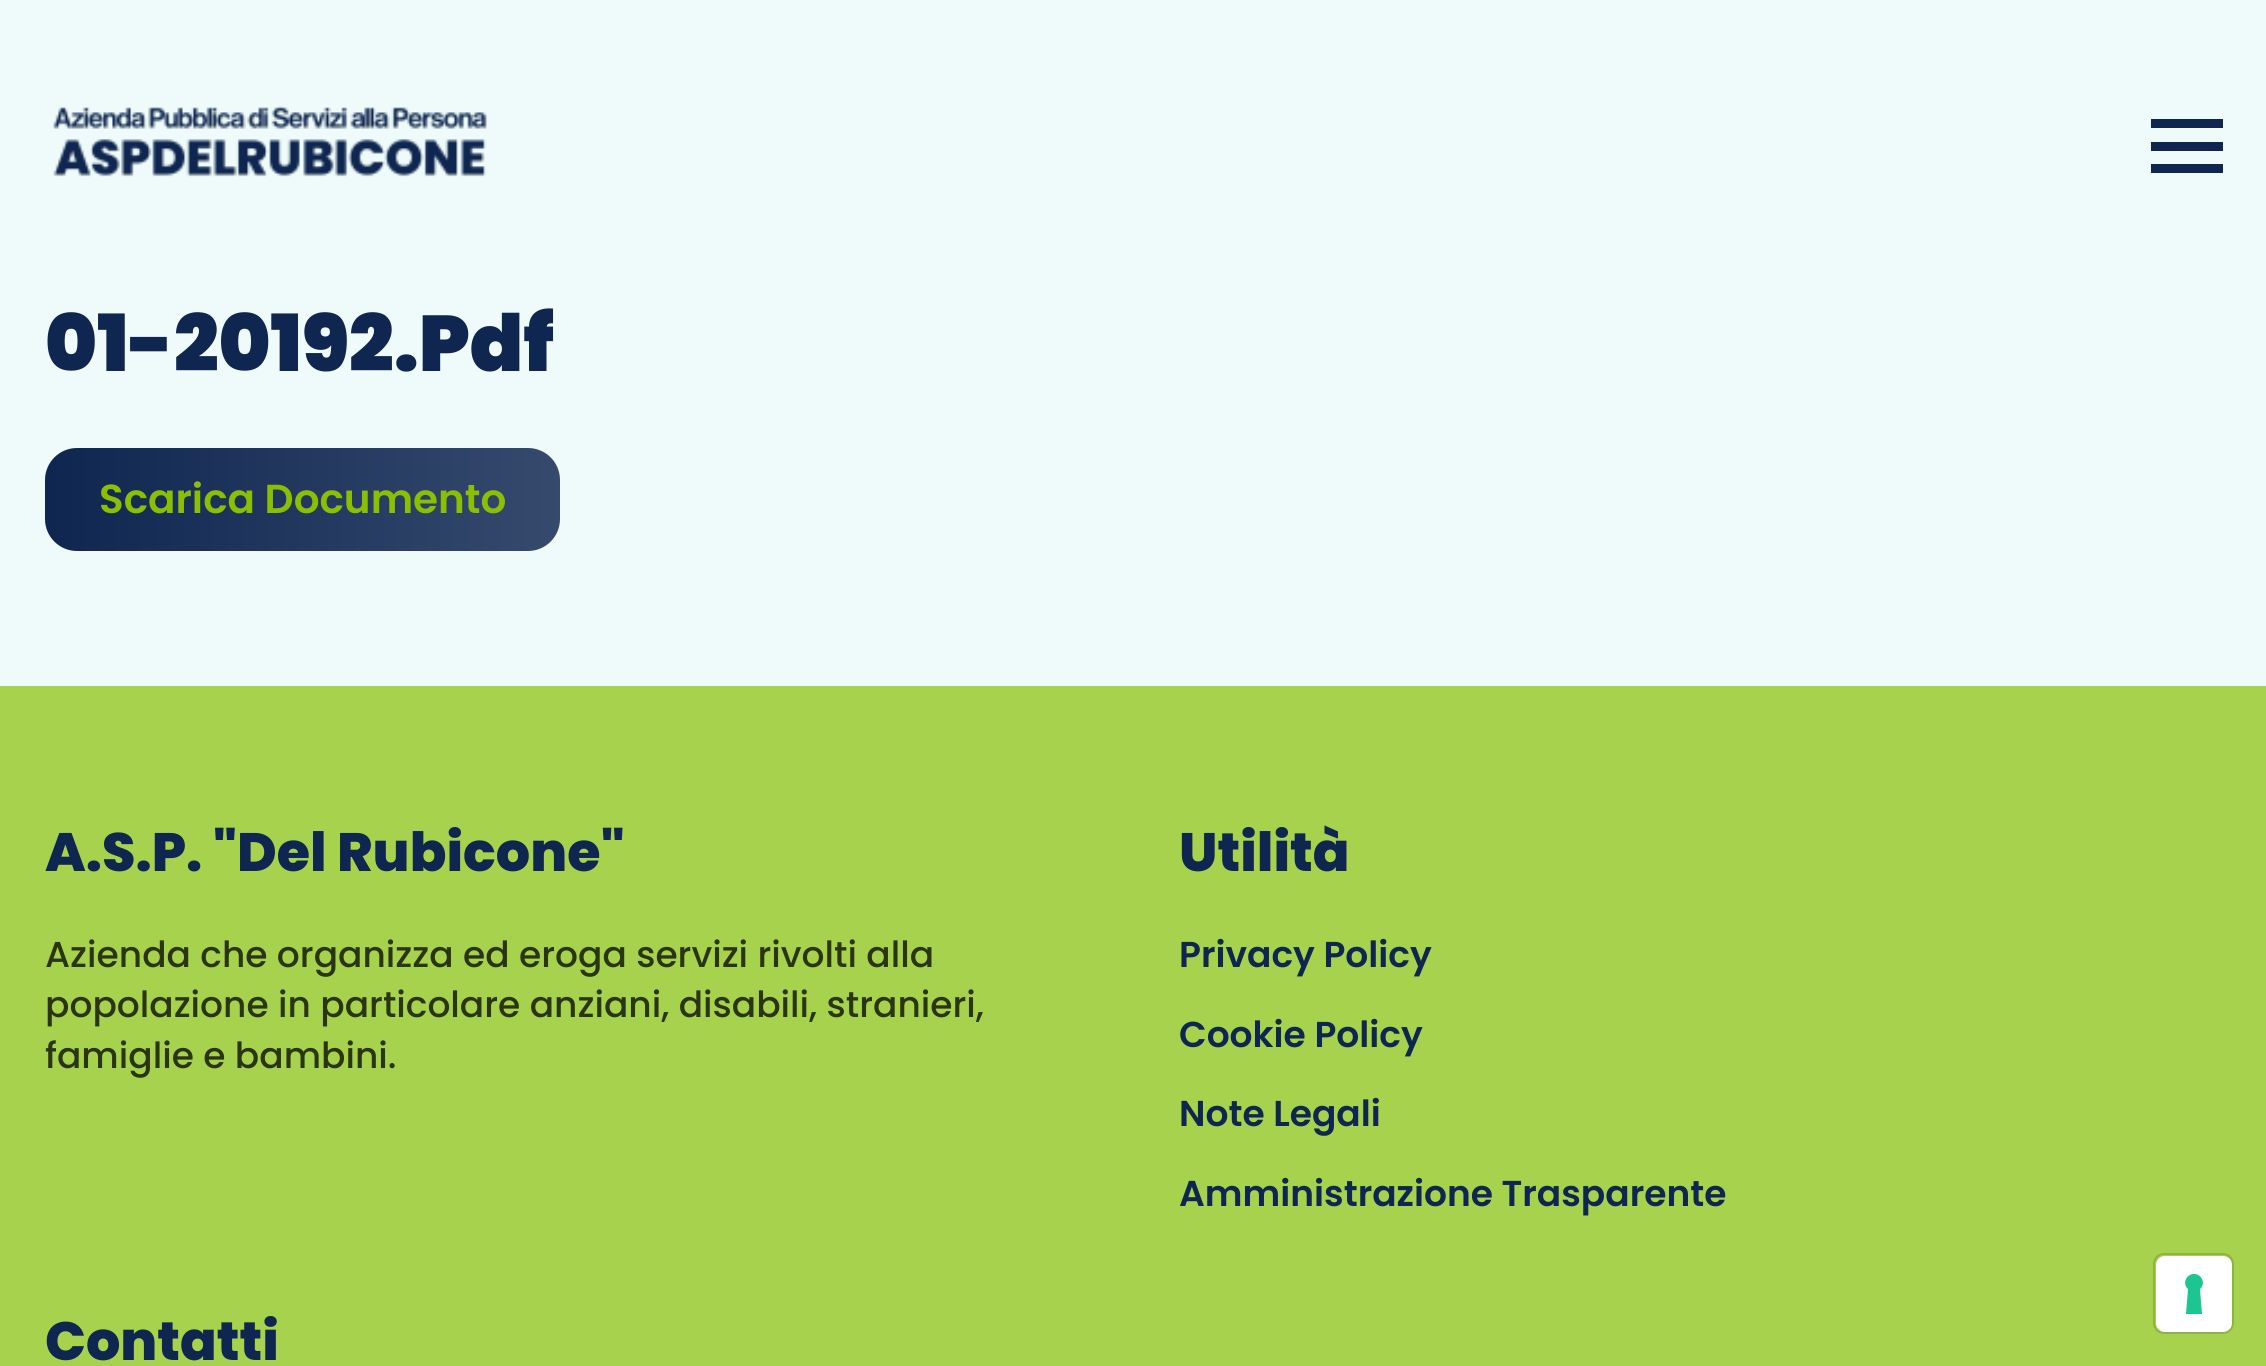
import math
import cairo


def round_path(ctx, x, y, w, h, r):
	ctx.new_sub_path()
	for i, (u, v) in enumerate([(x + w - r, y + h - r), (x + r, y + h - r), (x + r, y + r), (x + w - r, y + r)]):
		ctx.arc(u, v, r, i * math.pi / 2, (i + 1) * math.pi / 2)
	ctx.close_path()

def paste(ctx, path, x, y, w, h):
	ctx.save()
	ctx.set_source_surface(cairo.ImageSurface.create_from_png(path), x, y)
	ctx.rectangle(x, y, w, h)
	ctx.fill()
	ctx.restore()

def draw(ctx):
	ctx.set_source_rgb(0.933, 0.984, 0.98)
	ctx.paint()
	paste(ctx, 'media/1.png', 53, 105, 434, 72)
	ctx.set_source_rgb(0.059, 0.149, 0.314)
	ctx.rectangle(2151, 142, 72, 9)
	ctx.rectangle(2151, 119, 72, 9)
	ctx.rectangle(2151, 164, 72, 9)
	ctx.fill()
	ctx.select_font_face('Poppins Black')
	ctx.set_font_size(78.75)
	ctx.move_to(45, 371)
	ctx.show_text('01-20192.Pdf')
	gradient = cairo.LinearGradient(45, 500, 560, 500)
	gradient.add_color_stop_rgba(0.01, 0.059, 0.149, 0.314, 1)
	gradient.add_color_stop_rgba(1, 0.208, 0.29, 0.427, 1)
	ctx.set_source(gradient)
	round_path(ctx, 45, 448, 515, 103, 32)
	ctx.fill()
	ctx.select_font_face('Poppins SemiBold')
	ctx.set_font_size(40.5)
	ctx.set_source_rgb(0.541, 0.749, 0.008)
	ctx.move_to(99, 513)
	ctx.show_text('Scarica Documento')
	ctx.set_source_rgb(0.655, 0.824, 0.302)
	ctx.rectangle(0, 686, 2266, 680)
	ctx.fill()
	ctx.select_font_face('Poppins ExtraBold')
	ctx.set_font_size(54)
	ctx.set_source_rgb(0.059, 0.149, 0.314)
	ctx.move_to(45, 871)
	ctx.show_text('A.S.P. "Del Rubicone"')
	ctx.select_font_face('Poppins Medium')
	ctx.set_font_size(36)
	ctx.set_source_rgb(0.165, 0.208, 0.075)
	for x, y, s in [
		(45, 967, 'Azienda che organizza ed eroga servizi rivolti alla'),
		(45, 1017, 'popolazione in particolare anziani, disabili, stranieri,'),
		(45, 1068, 'famiglie e bambini.'),
	]:
		ctx.move_to(x, y)
		ctx.show_text(s)
	ctx.select_font_face('Poppins ExtraBold')
	ctx.set_font_size(54)
	ctx.set_source_rgb(0.059, 0.149, 0.314)
	ctx.move_to(1179, 871)
	ctx.show_text('Utilità')
	ctx.select_font_face('Poppins SemiBold')
	ctx.set_font_size(36)
	for x, y, s in [
		(1179, 967, 'Privacy Policy'),
		(1179, 1047, 'Cookie Policy'),
		(1179, 1126, 'Note Legali'),
		(1179, 1206, 'Amministrazione Trasparente'),
	]:
		ctx.move_to(x, y)
		ctx.show_text(s)
	ctx.select_font_face('Poppins ExtraBold')
	ctx.set_font_size(54)
	ctx.move_to(45, 1360)
	ctx.show_text('Contatti')
	round_path(ctx, 2154, 1254, 79, 79, 10)
	ctx.set_source_rgb(0.557, 0.702, 0.255)
	ctx.stroke()
	ctx.set_source_rgb(1, 1, 1)
	round_path(ctx, 2156, 1256, 76, 76, 9)
	ctx.fill()
	ctx.set_source_rgb(0.11, 0.776, 0.569)
	ctx.set_fill_rule(cairo.FILL_RULE_EVEN_ODD)
	ctx.new_path()
	ctx.move_to(2194, 1274)
	ctx.curve_to(2202, 1274, 2206, 1284, 2200, 1289)
	ctx.line_to(2202, 1314)
	ctx.line_to(2186, 1314)
	ctx.line_to(2188, 1289)
	ctx.curve_to(2182, 1284, 2186, 1274, 2194, 1274)
	ctx.close_path()
	ctx.fill()


surface = cairo.ImageSurface(cairo.FORMAT_RGB24, 2266, 1366)
ctx = cairo.Context(surface)
options = cairo.FontOptions()
options.set_hint_metrics(cairo.HINT_METRICS_OFF)
options.set_hint_style(cairo.HINT_STYLE_NONE)
ctx.set_font_options(options)
ctx.set_miter_limit(4)
draw(ctx)
surface.write_to_png('image.png')
